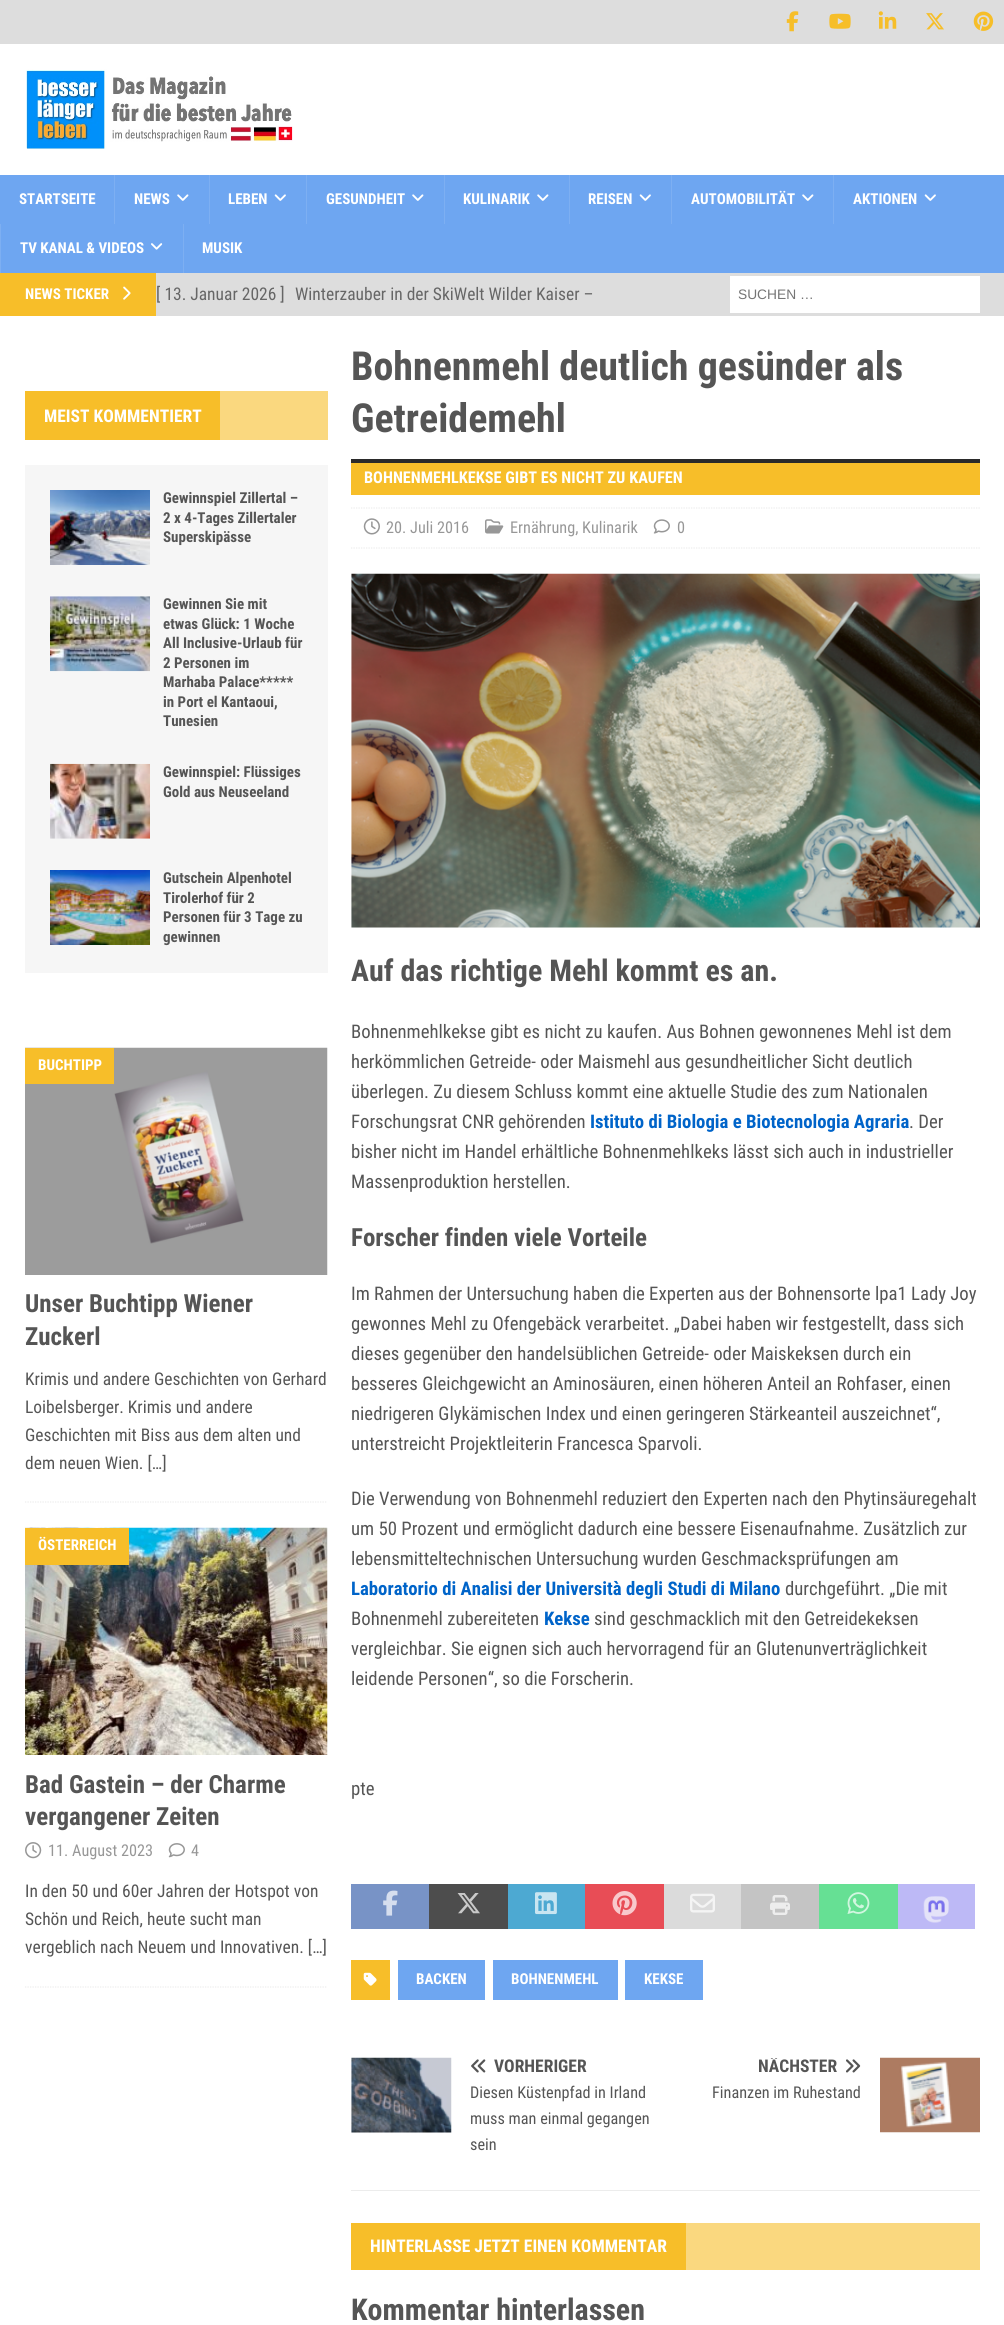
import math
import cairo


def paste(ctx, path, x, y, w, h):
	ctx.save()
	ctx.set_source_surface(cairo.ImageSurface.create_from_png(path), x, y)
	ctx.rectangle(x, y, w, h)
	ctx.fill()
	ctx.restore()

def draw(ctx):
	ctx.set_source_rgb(0.867, 0.867, 0.867)
	ctx.paint()
	paste(ctx, 'media/1.png', 786, 11, 13, 21)
	paste(ctx, 'media/2.png', 829, 13, 22, 16)
	paste(ctx, 'media/3.png', 878, 11, 19, 18)
	paste(ctx, 'media/4.png', 926, 13, 18, 17)
	paste(ctx, 'media/5.png', 973, 11, 21, 20)
	ctx.set_source_rgb(1, 1, 1)
	ctx.rectangle(0, 44, 1004, 131)
	ctx.fill()
	paste(ctx, 'media/6.png', 26, 69, 267, 80)
	ctx.set_source_rgb(0.431, 0.651, 0.945)
	ctx.rectangle(0, 175, 1004, 98)
	ctx.fill()
	ctx.select_font_face('Roboto Condensed', cairo.FONT_SLANT_NORMAL, cairo.FONT_WEIGHT_BOLD)
	ctx.set_font_size(15)
	ctx.set_source_rgb(1, 1, 1)
	ctx.move_to(19, 204)
	ctx.show_text('STARTSEITE')
	ctx.set_source_rgb(0.49, 0.686, 0.949)
	ctx.rectangle(114, 175, 1, 49)
	ctx.fill()
	ctx.set_source_rgb(1, 1, 1)
	ctx.move_to(134, 204)
	ctx.show_text('NEWS')
	paste(ctx, 'media/7.png', 177, 194, 12, 7)
	ctx.set_source_rgb(0.49, 0.686, 0.949)
	ctx.rectangle(209, 175, 1, 49)
	ctx.fill()
	ctx.set_source_rgb(1, 1, 1)
	ctx.move_to(228, 204)
	ctx.show_text('LEBEN')
	paste(ctx, 'media/8.png', 274, 194, 12, 7)
	ctx.set_source_rgb(0.49, 0.686, 0.949)
	ctx.rectangle(306, 175, 1, 49)
	ctx.fill()
	ctx.set_source_rgb(1, 1, 1)
	ctx.move_to(326, 204)
	ctx.show_text('GESUNDHEIT')
	paste(ctx, 'media/7.png', 412, 194, 12, 7)
	ctx.set_source_rgb(0.49, 0.686, 0.949)
	ctx.rectangle(444, 175, 1, 49)
	ctx.fill()
	ctx.set_source_rgb(1, 1, 1)
	ctx.move_to(463, 204)
	ctx.show_text('KULINARIK')
	paste(ctx, 'media/7.png', 537, 194, 12, 7)
	ctx.set_source_rgb(0.49, 0.686, 0.949)
	ctx.rectangle(569, 175, 1, 49)
	ctx.fill()
	ctx.set_source_rgb(1, 1, 1)
	ctx.move_to(588, 204)
	ctx.show_text('REISEN')
	paste(ctx, 'media/8.png', 639, 194, 12, 7)
	ctx.set_source_rgb(0.49, 0.686, 0.949)
	ctx.rectangle(671, 175, 1, 49)
	ctx.fill()
	ctx.set_source_rgb(1, 1, 1)
	ctx.move_to(691, 204)
	ctx.show_text('AUTOMOBILITÄT')
	paste(ctx, 'media/7.png', 802, 194, 12, 7)
	ctx.set_source_rgb(0.49, 0.686, 0.949)
	ctx.rectangle(833, 175, 1, 49)
	ctx.fill()
	ctx.set_source_rgb(1, 1, 1)
	ctx.move_to(853, 204)
	ctx.show_text('AKTIONEN')
	paste(ctx, 'media/8.png', 924, 194, 12, 7)
	ctx.set_source_rgb(0.49, 0.686, 0.949)
	ctx.rectangle(0, 224, 1, 49)
	ctx.fill()
	ctx.set_source_rgb(1, 1, 1)
	ctx.move_to(20, 253)
	ctx.show_text('TV KANAL & VIDEOS')
	paste(ctx, 'media/9.png', 151, 243, 12, 7)
	ctx.set_source_rgb(0.49, 0.686, 0.949)
	ctx.rectangle(183, 224, 1, 49)
	ctx.fill()
	ctx.set_source_rgb(1, 1, 1)
	ctx.move_to(202, 253)
	ctx.show_text('MUSIK')
	ctx.set_source_rgb(0.965, 0.745, 0.161)
	ctx.rectangle(0, 273, 156, 43)
	ctx.fill()
	ctx.set_source_rgb(1, 1, 1)
	ctx.move_to(25, 299)
	ctx.show_text('NEWS TICKER')
	paste(ctx, 'media/10.png', 123, 286, 8, 14)
	ctx.select_font_face('Roboto Condensed')
	ctx.set_font_size(17.5)
	ctx.set_source_rgb(0.4, 0.4, 0.4)
	ctx.move_to(156, 300)
	ctx.show_text('[ 13. Januar 2026 ]')
	ctx.move_to(295, 300)
	ctx.show_text('Winterzauber in der SkiWelt Wilder Kaiser –')
	ctx.set_source_rgb(1, 1, 1)
	ctx.rectangle(730, 276, 250, 37)
	ctx.fill()
	ctx.select_font_face('Liberation Sans')
	ctx.set_font_size(13.75)
	ctx.set_source_rgb(0.459, 0.459, 0.459)
	ctx.move_to(738, 299)
	ctx.show_text('SUCHEN …')
	ctx.set_source_rgb(1, 1, 1)
	ctx.rectangle(0, 316, 1004, 2009)
	ctx.fill()
	ctx.set_source_rgb(0.98, 0.847, 0.498)
	ctx.rectangle(220, 391, 108, 49)
	ctx.fill()
	ctx.set_source_rgb(0.965, 0.745, 0.161)
	ctx.rectangle(25, 391, 195, 49)
	ctx.fill()
	ctx.select_font_face('Roboto Condensed', cairo.FONT_SLANT_NORMAL, cairo.FONT_WEIGHT_BOLD)
	ctx.set_font_size(17.5)
	ctx.set_source_rgb(1, 1, 1)
	ctx.move_to(44, 422)
	ctx.show_text('MEIST KOMMENTIERT')
	ctx.set_source_rgb(0.961, 0.961, 0.961)
	ctx.rectangle(25, 465, 303, 508)
	ctx.fill()
	paste(ctx, 'media/11.png', 50, 490, 100, 75)
	ctx.set_font_size(15)
	ctx.set_source_rgb(0.333, 0.333, 0.333)
	for x, y, s in [
		(163, 503, 'Gewinnspiel Zillertal –'),
		(163, 523, '2 x 4-Tages Zillertaler'),
		(163, 542, 'Superskipässe'),
	]:
		ctx.move_to(x, y)
		ctx.show_text(s)
	paste(ctx, 'media/12.png', 50, 596, 100, 76)
	for x, y, s in [
		(163, 609, 'Gewinnen Sie mit'),
		(163, 629, 'etwas Glück: 1 Woche'),
		(163, 648, 'All Inclusive-Urlaub für'),
		(163, 668, '2 Personen im'),
		(163, 687, 'Marhaba Palace*****'),
		(163, 707, 'in Port el Kantaoui,'),
		(163, 726, 'Tunesien'),
	]:
		ctx.move_to(x, y)
		ctx.show_text(s)
	paste(ctx, 'media/13.png', 50, 763, 100, 76)
	ctx.move_to(163, 777)
	ctx.show_text('Gewinnspiel: Flüssiges')
	ctx.move_to(163, 797)
	ctx.show_text('Gold aus Neuseeland')
	paste(ctx, 'media/14.png', 50, 870, 100, 75)
	for x, y, s in [
		(163, 883, 'Gutschein Alpenhotel'),
		(163, 903, 'Tirolerhof für 2'),
		(163, 922, 'Personen für 3 Tage zu'),
		(163, 942, 'gewinnen'),
	]:
		ctx.move_to(x, y)
		ctx.show_text(s)
	ctx.new_path()
	ctx.move_to(25, 1502)
	ctx.line_to(327.5, 1502)
	ctx.set_source_rgb(0.922, 0.922, 0.922)
	ctx.set_line_width(1.2)
	ctx.set_dash([1.25, 1.25])
	ctx.stroke()
	paste(ctx, 'media/15.png', 25, 1047, 303, 228)
	ctx.set_source_rgb(0.965, 0.745, 0.161)
	ctx.rectangle(25, 1048, 89, 36)
	ctx.fill()
	ctx.set_source_rgb(1, 1, 1)
	ctx.move_to(38, 1070)
	ctx.show_text('BUCHTIPP')
	ctx.set_font_size(25)
	ctx.set_source_rgb(0.333, 0.333, 0.333)
	ctx.move_to(25, 1312)
	ctx.show_text('Unser Buchtipp Wiener')
	ctx.move_to(25, 1345)
	ctx.show_text('Zuckerl')
	ctx.select_font_face('Roboto Condensed')
	ctx.set_font_size(17.5)
	for x, y, s in [
		(25, 1385, 'Krimis und andere Geschichten von Gerhard'),
		(25, 1413, 'Loibelsberger. Krimis und andere'),
		(25, 1441, 'Geschichten mit Biss aus dem alten und'),
		(25, 1469, 'dem neuen Wien. […]'),
	]:
		ctx.move_to(x, y)
		ctx.show_text(s)
	ctx.new_path()
	ctx.move_to(25, 1987)
	ctx.line_to(327.5, 1987)
	ctx.set_source_rgb(0.922, 0.922, 0.922)
	ctx.stroke()
	paste(ctx, 'media/16.png', 25, 1527, 303, 228)
	ctx.set_source_rgb(0.965, 0.745, 0.161)
	ctx.rectangle(25, 1528, 104, 37)
	ctx.fill()
	ctx.select_font_face('Roboto Condensed', cairo.FONT_SLANT_NORMAL, cairo.FONT_WEIGHT_BOLD)
	ctx.set_font_size(15)
	ctx.set_source_rgb(1, 1, 1)
	ctx.move_to(38, 1550)
	ctx.show_text('ÖSTERREICH')
	ctx.set_font_size(25)
	ctx.set_source_rgb(0.333, 0.333, 0.333)
	ctx.move_to(25, 1793)
	ctx.show_text('Bad Gastein – der Charme')
	ctx.move_to(25, 1825)
	ctx.show_text('vergangener Zeiten')
	paste(ctx, 'media/17.png', 25, 1842, 17, 17)
	ctx.select_font_face('Roboto Condensed')
	ctx.set_font_size(16.25)
	ctx.set_source_rgb(0.592, 0.592, 0.592)
	ctx.move_to(48, 1856)
	ctx.show_text('11. August 2023')
	paste(ctx, 'media/18.png', 168, 1843, 17, 15)
	ctx.move_to(191, 1856)
	ctx.show_text('4')
	ctx.set_font_size(17.5)
	ctx.set_source_rgb(0.333, 0.333, 0.333)
	for x, y, s in [
		(25, 1897, 'In den 50 und 60er Jahren der Hotspot von'),
		(25, 1925, 'Schön und Reich, heute sucht man'),
		(25, 1953, 'vergeblich nach Neuem und Innovativen. […]'),
	]:
		ctx.move_to(x, y)
		ctx.show_text(s)
	ctx.select_font_face('Roboto Condensed', cairo.FONT_SLANT_NORMAL, cairo.FONT_WEIGHT_BOLD)
	ctx.set_font_size(40)
	ctx.move_to(351, 380)
	ctx.show_text('Bohnenmehl deutlich gesünder als')
	ctx.move_to(351, 432)
	ctx.show_text('Getreidemehl')
	ctx.set_source_rgb(0.165, 0.165, 0.165)
	ctx.rectangle(351, 459, 629, 4)
	ctx.fill()
	ctx.set_source_rgb(0.965, 0.745, 0.161)
	ctx.rectangle(351, 463, 629, 32)
	ctx.fill()
	ctx.set_font_size(16.25)
	ctx.set_source_rgb(1, 1, 1)
	ctx.move_to(364, 483)
	ctx.show_text('BOHNENMEHLKEKSE GIBT ES NICHT ZU KAUFEN')
	ctx.new_path()
	ctx.move_to(351, 508)
	ctx.line_to(980, 508)
	ctx.set_source_rgb(0.922, 0.922, 0.922)
	ctx.stroke()
	ctx.new_path()
	ctx.move_to(351, 548)
	ctx.line_to(980, 548)
	ctx.stroke()
	paste(ctx, 'media/19.png', 363, 518, 17, 17)
	ctx.select_font_face('Roboto Condensed')
	ctx.set_source_rgb(0.592, 0.592, 0.592)
	ctx.move_to(386, 533)
	ctx.show_text('20. Juli 2016')
	paste(ctx, 'media/20.png', 485, 519, 19, 15)
	ctx.move_to(510, 533)
	ctx.show_text('Ernährung, Kulinarik')
	paste(ctx, 'media/21.png', 653, 519, 17, 15)
	ctx.move_to(677, 533)
	ctx.show_text('0')
	paste(ctx, 'media/22.png', 351, 573, 629, 355)
	ctx.select_font_face('Roboto Condensed', cairo.FONT_SLANT_NORMAL, cairo.FONT_WEIGHT_BOLD)
	ctx.set_font_size(30)
	ctx.set_source_rgb(0.333, 0.333, 0.333)
	ctx.move_to(351, 981)
	ctx.show_text('Auf das richtige Mehl kommt es an.')
	ctx.select_font_face('Roboto Condensed')
	ctx.set_font_size(18.75)
	for x, y, s in [
		(351, 1038, 'Bohnenmehlkekse gibt es nicht zu kaufen. Aus Bohnen gewonnenes Mehl ist dem'),
		(351, 1068, 'herkömmlichen Getreide- oder Maismehl aus gesundheitlicher Sicht deutlich'),
		(351, 1098, 'überlegen. Zu diesem Schluss kommt eine aktuelle Studie des zum Nationalen'),
		(351, 1128, 'Forschungsrat CNR gehörenden'),
	]:
		ctx.move_to(x, y)
		ctx.show_text(s)
	ctx.select_font_face('Roboto Condensed', cairo.FONT_SLANT_NORMAL, cairo.FONT_WEIGHT_BOLD)
	ctx.set_source_rgb(0, 0.392, 0.788)
	ctx.move_to(590, 1128)
	ctx.show_text('Istituto di Biologia e Biotecnologia Agraria')
	ctx.select_font_face('Roboto Condensed')
	ctx.set_source_rgb(0.333, 0.333, 0.333)
	for x, y, s in [
		(909, 1128, '. Der'),
		(351, 1158, 'bisher nicht im Handel erhältliche Bohnenmehlkeks lässt sich auch in industrieller'),
		(351, 1188, 'Massenproduktion herstellen.'),
	]:
		ctx.move_to(x, y)
		ctx.show_text(s)
	ctx.select_font_face('Roboto Condensed', cairo.FONT_SLANT_NORMAL, cairo.FONT_WEIGHT_BOLD)
	ctx.set_font_size(25)
	ctx.move_to(351, 1246)
	ctx.show_text('Forscher finden viele Vorteile')
	ctx.select_font_face('Roboto Condensed')
	ctx.set_font_size(18.75)
	for x, y, s in [
		(351, 1300, 'Im Rahmen der Untersuchung haben die Experten aus der Bohnensorte lpa1 Lady Joy'),
		(351, 1330, 'gewonnes Mehl zu Ofengebäck verarbeitet. „Dabei haben wir festgestellt, dass sich'),
		(351, 1360, 'dieses gegenüber den handelsüblichen Getreide- oder Maiskeksen durch ein'),
		(351, 1390, 'besseres Gleichgewicht an Aminosäuren, einen höheren Anteil an Rohfaser, einen'),
		(351, 1420, 'niedrigeren Glykämischen Index und einen geringeren Stärkeanteil auszeichnet“,'),
		(351, 1450, 'unterstreicht Projektleiterin Francesca Sparvoli.'),
		(351, 1505, 'Die Verwendung von Bohnenmehl reduziert den Experten nach den Phytinsäuregehalt'),
		(351, 1535, 'um 50 Prozent und ermöglicht dadurch eine bessere Eisenaufnahme. Zusätzlich zur'),
		(351, 1565, 'lebensmitteltechnischen Untersuchung wurden Geschmacksprüfungen am'),
	]:
		ctx.move_to(x, y)
		ctx.show_text(s)
	ctx.select_font_face('Roboto Condensed', cairo.FONT_SLANT_NORMAL, cairo.FONT_WEIGHT_BOLD)
	ctx.set_source_rgb(0, 0.392, 0.788)
	ctx.move_to(351, 1595)
	ctx.show_text('Laboratorio di Analisi der Università degli Studi di Milano')
	ctx.select_font_face('Roboto Condensed')
	ctx.set_source_rgb(0.333, 0.333, 0.333)
	ctx.move_to(785, 1595)
	ctx.show_text('durchgeführt. „Die mit')
	ctx.move_to(351, 1625)
	ctx.show_text('Bohnenmehl zubereiteten')
	ctx.select_font_face('Roboto Condensed', cairo.FONT_SLANT_NORMAL, cairo.FONT_WEIGHT_BOLD)
	ctx.set_source_rgb(0, 0.392, 0.788)
	ctx.move_to(544, 1625)
	ctx.show_text('Kekse')
	ctx.select_font_face('Roboto Condensed')
	ctx.set_source_rgb(0.333, 0.333, 0.333)
	for x, y, s in [
		(594, 1625, 'sind geschmacklich mit den Getreidekeksen'),
		(351, 1655, 'vergleichbar. Sie eignen sich auch hervorragend für an Glutenunverträglichkeit'),
		(351, 1685, 'leidende Personen“, so die Forscherin.'),
		(351, 1795, 'pte'),
	]:
		ctx.move_to(x, y)
		ctx.show_text(s)
	ctx.set_source_rgb(0.471, 0.576, 0.776)
	ctx.rectangle(351, 1884, 78, 45)
	ctx.fill()
	paste(ctx, 'media/23.png', 383, 1890, 15, 26)
	ctx.set_source_rgb(0.302, 0.302, 0.302)
	ctx.rectangle(429, 1884, 79, 45)
	ctx.fill()
	paste(ctx, 'media/24.png', 457, 1893, 23, 21)
	ctx.set_source_rgb(0.302, 0.663, 0.824)
	ctx.rectangle(508, 1884, 77, 45)
	ctx.fill()
	paste(ctx, 'media/25.png', 535, 1892, 22, 23)
	ctx.set_source_rgb(0.91, 0.302, 0.337)
	ctx.rectangle(585, 1884, 79, 45)
	ctx.fill()
	paste(ctx, 'media/26.png', 612, 1891, 25, 25)
	ctx.set_source_rgb(0.859, 0.859, 0.859)
	ctx.rectangle(664, 1884, 77, 45)
	ctx.fill()
	paste(ctx, 'media/27.png', 690, 1893, 25, 20)
	ctx.set_source_rgb(0.769, 0.769, 0.769)
	ctx.rectangle(741, 1884, 78, 45)
	ctx.fill()
	paste(ctx, 'media/28.png', 770, 1895, 20, 20)
	ctx.set_source_rgb(0.4, 0.878, 0.58)
	ctx.rectangle(819, 1884, 79, 45)
	ctx.fill()
	paste(ctx, 'media/29.png', 847, 1892, 23, 22)
	ctx.set_source_rgb(0.741, 0.725, 0.961)
	ctx.rectangle(898, 1884, 77, 45)
	ctx.fill()
	paste(ctx, 'media/30.png', 923, 1896, 26, 27)
	ctx.set_source_rgb(0.965, 0.745, 0.161)
	ctx.rectangle(351, 1960, 39, 40)
	ctx.fill()
	paste(ctx, 'media/31.png', 363, 1972, 14, 14)
	ctx.set_source_rgb(0.431, 0.651, 0.945)
	ctx.rectangle(398, 1960, 87, 40)
	ctx.fill()
	ctx.select_font_face('Roboto Condensed', cairo.FONT_SLANT_NORMAL, cairo.FONT_WEIGHT_BOLD)
	ctx.set_font_size(15)
	ctx.set_source_rgb(1, 1, 1)
	ctx.move_to(416, 1984)
	ctx.show_text('BACKEN')
	ctx.set_source_rgb(0.431, 0.651, 0.945)
	ctx.rectangle(493, 1960, 125, 40)
	ctx.fill()
	ctx.set_source_rgb(1, 1, 1)
	ctx.move_to(511, 1984)
	ctx.show_text('BOHNENMEHL')
	ctx.set_source_rgb(0.431, 0.651, 0.945)
	ctx.rectangle(625, 1960, 78, 40)
	ctx.fill()
	ctx.set_source_rgb(1, 1, 1)
	ctx.move_to(644, 1984)
	ctx.show_text('KEKSE')
	ctx.set_source_rgb(0.922, 0.922, 0.922)
	ctx.rectangle(351, 2190, 629, 1)
	ctx.fill()
	paste(ctx, 'media/32.png', 351, 2057, 101, 76)
	paste(ctx, 'media/33.png', 471, 2059, 15, 14)
	ctx.set_font_size(17.5)
	ctx.set_source_rgb(0.333, 0.333, 0.333)
	ctx.move_to(494, 2072)
	ctx.show_text('VORHERIGER')
	ctx.select_font_face('Roboto Condensed')
	ctx.set_font_size(16.25)
	for x, y, s in [
		(470, 2098, 'Diesen Küstenpfad in Irland'),
		(470, 2124, 'muss man einmal gegangen'),
		(470, 2150, 'sein'),
	]:
		ctx.move_to(x, y)
		ctx.show_text(s)
	ctx.save()
	ctx.rectangle(674, 2058, 187, 17)
	ctx.clip()
	ctx.select_font_face('Roboto Condensed', cairo.FONT_SLANT_NORMAL, cairo.FONT_WEIGHT_BOLD)
	ctx.set_font_size(17.5)
	ctx.move_to(758, 2072)
	ctx.show_text('NÄCHSTER')
	ctx.restore()
	paste(ctx, 'media/34.png', 846, 2059, 15, 14)
	paste(ctx, 'media/35.png', 880, 2057, 100, 76)
	ctx.move_to(712, 2098)
	ctx.show_text('Finanzen im Ruhestand')
	ctx.set_source_rgb(0.98, 0.847, 0.498)
	ctx.rectangle(686, 2223, 294, 47)
	ctx.fill()
	ctx.set_source_rgb(0.965, 0.745, 0.161)
	ctx.rectangle(351, 2223, 335, 47)
	ctx.fill()
	ctx.select_font_face('Roboto Condensed', cairo.FONT_SLANT_NORMAL, cairo.FONT_WEIGHT_BOLD)
	ctx.set_font_size(17.5)
	ctx.set_source_rgb(1, 1, 1)
	ctx.move_to(370, 2252)
	ctx.show_text('HINTERLASSE JETZT EINEN KOMMENTAR')
	ctx.set_font_size(30)
	ctx.set_source_rgb(0.333, 0.333, 0.333)
	ctx.move_to(351, 2320)
	ctx.show_text('Kommentar hinterlassen')


surface = cairo.ImageSurface(cairo.FORMAT_RGB24, 1004, 2325)
ctx = cairo.Context(surface)
options = cairo.FontOptions()
options.set_hint_metrics(cairo.HINT_METRICS_OFF)
options.set_hint_style(cairo.HINT_STYLE_NONE)
ctx.set_font_options(options)
ctx.set_miter_limit(4)
draw(ctx)
surface.write_to_png('image.png')
